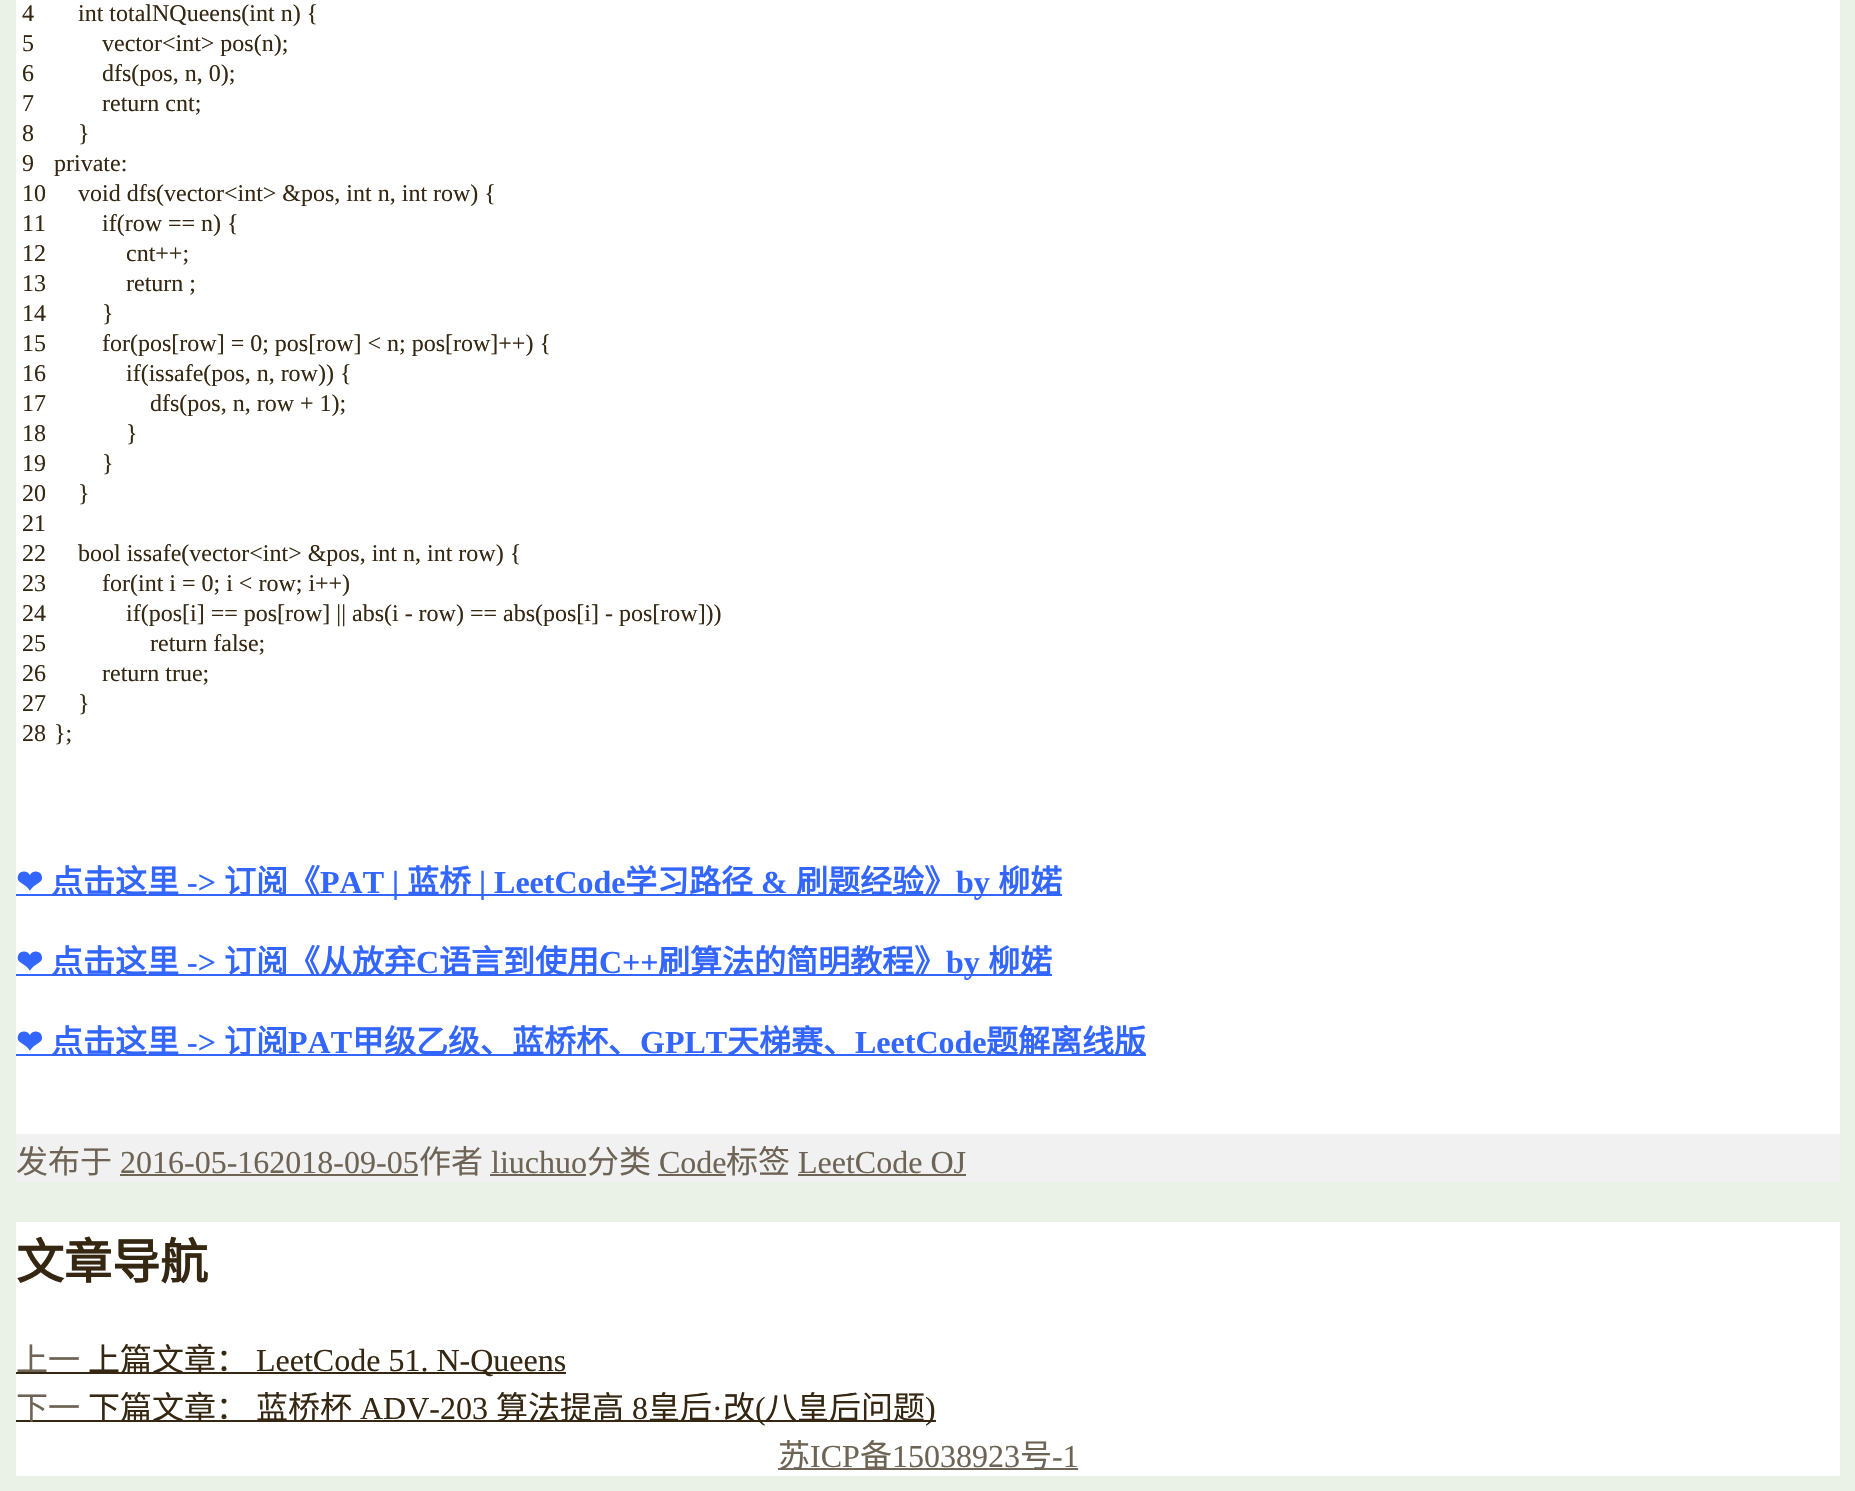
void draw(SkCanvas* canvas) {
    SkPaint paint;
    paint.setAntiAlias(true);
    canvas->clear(0xFFEAF2E8);
    paint.setColor(0xFFFFFFFF);
    canvas->drawRect(SkRect::MakeXYWH(16, 0, 1824, 1134), paint);
    SkFont font1(fontMgr->matchFamilyStyle("Liberation Serif", SkFontStyle::Normal()), 24);
    font1.setSubpixel(true);
    paint.setColor(0xFF352712);
    canvas->drawString("4", 22, 21, font1, paint);
    canvas->drawString("5", 22, 51, font1, paint);
    canvas->drawString("6", 22, 81, font1, paint);
    canvas->drawString("7", 22, 111, font1, paint);
    canvas->drawString("8", 22, 141, font1, paint);
    canvas->drawString("9", 22, 171, font1, paint);
    canvas->drawString("10", 22, 201, font1, paint);
    canvas->drawString("11", 22, 231, font1, paint);
    canvas->drawString("12", 22, 261, font1, paint);
    canvas->drawString("13", 22, 291, font1, paint);
    canvas->drawString("14", 22, 321, font1, paint);
    canvas->drawString("15", 22, 351, font1, paint);
    canvas->drawString("16", 22, 381, font1, paint);
    canvas->drawString("17", 22, 411, font1, paint);
    canvas->drawString("18", 22, 441, font1, paint);
    canvas->drawString("19", 22, 471, font1, paint);
    canvas->drawString("20", 22, 501, font1, paint);
    canvas->drawString("21", 22, 531, font1, paint);
    canvas->drawString("22", 22, 561, font1, paint);
    canvas->drawString("23", 22, 591, font1, paint);
    canvas->drawString("24", 22, 621, font1, paint);
    canvas->drawString("25", 22, 651, font1, paint);
    canvas->drawString("26", 22, 681, font1, paint);
    canvas->drawString("27", 22, 711, font1, paint);
    canvas->drawString("28", 22, 741, font1, paint);
    canvas->drawString("int totalNQueens(int n) {", 78, 21, font1, paint);
    canvas->drawString("vector<int> pos(n);", 102, 51, font1, paint);
    canvas->drawString("dfs(pos, n, 0);", 102, 81, font1, paint);
    canvas->drawString("return cnt;", 102, 111, font1, paint);
    canvas->drawString("}", 78, 141, font1, paint);
    canvas->drawString("private:", 54, 171, font1, paint);
    canvas->drawString("void dfs(vector<int> &pos, int n, int row) {", 78, 201, font1, paint);
    canvas->drawString("if(row == n) {", 102, 231, font1, paint);
    canvas->drawString("cnt++;", 126, 261, font1, paint);
    canvas->drawString("return ;", 126, 291, font1, paint);
    canvas->drawString("}", 102, 321, font1, paint);
    canvas->drawString("for(pos[row] = 0; pos[row] < n; pos[row]++) {", 102, 351, font1, paint);
    canvas->drawString("if(issafe(pos, n, row)) {", 126, 381, font1, paint);
    canvas->drawString("dfs(pos, n, row + 1);", 150, 411, font1, paint);
    canvas->drawString("}", 126, 441, font1, paint);
    canvas->drawString("}", 102, 471, font1, paint);
    canvas->drawString("}", 78, 501, font1, paint);
    canvas->drawString("bool issafe(vector<int> &pos, int n, int row) {", 78, 561, font1, paint);
    canvas->drawString("for(int i = 0; i < row; i++)", 102, 591, font1, paint);
    canvas->drawString("if(pos[i] == pos[row] || abs(i - row) == abs(pos[i] - pos[row]))", 126, 621, font1, paint);
    canvas->drawString("return false;", 150, 651, font1, paint);
    canvas->drawString("return true;", 102, 681, font1, paint);
    canvas->drawString("}", 78, 711, font1, paint);
    canvas->drawString("};", 54, 741, font1, paint);
    SkFont font2(fontMgr->matchFamilyStyle("DejaVu Sans", SkFontStyle::Bold()), 32);
    font2.setSubpixel(true);
    paint.setColor(0xFF3366FF);
    canvas->drawString("❤", 16, 893, font2, paint);
    canvas->drawRect(SkRect::MakeXYWH(16, 894, 1046, 2), paint);
    SkFont font3(fontMgr->matchFamilyStyle("Noto Sans CJK SC", SkFontStyle::Bold()), 32);
    font3.setSubpixel(true);
    canvas->drawString("点击这里", 51, 893, font3, paint);
    SkFont font4(fontMgr->matchFamilyStyle("Liberation Serif", SkFontStyle::Bold()), 32);
    font4.setSubpixel(true);
    canvas->drawString("->", 187, 893, font4, paint);
    canvas->drawString("订阅《", 224, 893, font3, paint);
    canvas->drawString("PAT |", 320, 893, font4, paint);
    canvas->drawString("蓝桥", 407, 893, font3, paint);
    canvas->drawString("| LeetCode", 479, 893, font4, paint);
    canvas->drawString("学习路径", 625, 893, font3, paint);
    canvas->drawString("&", 761, 893, font4, paint);
    canvas->drawString("刷题经验》", 796, 893, font3, paint);
    canvas->drawString("by", 956, 893, font4, paint);
    canvas->drawString("柳婼", 998, 893, font3, paint);
    canvas->drawString("❤", 16, 973, font2, paint);
    canvas->drawRect(SkRect::MakeXYWH(16, 974, 1036, 2), paint);
    canvas->drawString("点击这里", 51, 973, font3, paint);
    canvas->drawString("->", 187, 973, font4, paint);
    canvas->drawString("订阅《从放弃", 224, 973, font3, paint);
    canvas->drawString("C", 416, 973, font4, paint);
    canvas->drawString("语言到使用", 439, 973, font3, paint);
    canvas->drawString("C++", 599, 973, font4, paint);
    canvas->drawString("刷算法的简明教程》", 658, 973, font3, paint);
    canvas->drawString("by", 946, 973, font4, paint);
    canvas->drawString("柳婼", 988, 973, font3, paint);
    canvas->drawString("❤", 16, 1053, font2, paint);
    canvas->drawRect(SkRect::MakeXYWH(16, 1054, 1130, 2), paint);
    canvas->drawString("点击这里", 51, 1053, font3, paint);
    canvas->drawString("->", 187, 1053, font4, paint);
    canvas->drawString("订阅", 224, 1053, font3, paint);
    canvas->drawString("PAT", 288, 1053, font4, paint);
    canvas->drawString("甲级乙级、蓝桥杯、", 352, 1053, font3, paint);
    canvas->drawString("GPLT", 640, 1053, font4, paint);
    canvas->drawString("天梯赛、", 727, 1053, font3, paint);
    canvas->drawString("LeetCode", 855, 1053, font4, paint);
    canvas->drawString("题解离线版", 986, 1053, font3, paint);
    paint.setColor(0xFFF1F1F1);
    canvas->drawRect(SkRect::MakeXYWH(16, 1134, 1824, 48), paint);
    SkFont font5(fontMgr->matchFamilyStyle("Noto Sans CJK SC", SkFontStyle::Normal()), 32);
    font5.setSubpixel(true);
    paint.setColor(0xFF6D6455);
    canvas->drawString("发布于", 16, 1173, font5, paint);
    SkFont font6(fontMgr->matchFamilyStyle("Liberation Serif", SkFontStyle::Normal()), 32);
    font6.setSubpixel(true);
    canvas->drawString("2016-05-162018-09-05", 120, 1173, font6, paint);
    canvas->drawRect(SkRect::MakeXYWH(120, 1174, 298, 2), paint);
    canvas->drawString("作者", 419, 1173, font5, paint);
    canvas->drawString("liuchuo", 491, 1173, font6, paint);
    canvas->drawRect(SkRect::MakeXYWH(490, 1174, 96, 2), paint);
    canvas->drawString("分类", 587, 1173, font5, paint);
    canvas->drawString("Code", 659, 1173, font6, paint);
    canvas->drawRect(SkRect::MakeXYWH(658, 1174, 68, 2), paint);
    canvas->drawString("标签", 726, 1173, font5, paint);
    canvas->drawString("LeetCode OJ", 798, 1173, font6, paint);
    canvas->drawRect(SkRect::MakeXYWH(798, 1174, 168, 2), paint);
    paint.setColor(0xFFFFFFFF);
    canvas->drawRect(SkRect::MakeXYWH(16, 1222, 1824, 254), paint);
    SkFont font7(fontMgr->matchFamilyStyle("Noto Sans CJK SC", SkFontStyle::Bold()), 48);
    font7.setSubpixel(true);
    paint.setColor(0xFF352712);
    canvas->drawString("文章导航", 16, 1279, font7, paint);
    canvas->drawRect(SkRect::MakeXYWH(16, 1372, 550, 2), paint);
    paint.setColor(0xFF6D6455);
    canvas->drawString("上一", 16, 1371, font5, paint);
    paint.setColor(0xFF352712);
    canvas->drawString("上篇文章：", 88, 1371, font5, paint);
    canvas->drawString("LeetCode 51. N-Queens", 256, 1371, font6, paint);
    canvas->drawRect(SkRect::MakeXYWH(16, 1420, 920, 2), paint);
    paint.setColor(0xFF6D6455);
    canvas->drawString("下一", 16, 1419, font5, paint);
    paint.setColor(0xFF352712);
    canvas->drawString("下篇文章：", 88, 1419, font5, paint);
    canvas->drawString("蓝桥杯", 256, 1419, font5, paint);
    canvas->drawString("ADV-203", 360, 1419, font6, paint);
    canvas->drawString("算法提高", 496, 1419, font5, paint);
    canvas->drawString("8", 632, 1419, font6, paint);
    canvas->drawString("皇后", 648, 1419, font5, paint);
    canvas->drawString("·", 712, 1419, font6, paint);
    canvas->drawString("改", 723, 1419, font5, paint);
    canvas->drawString("(", 755, 1419, font6, paint);
    canvas->drawString("八皇后问题", 765, 1419, font5, paint);
    canvas->drawString(")", 925, 1419, font6, paint);
    paint.setColor(0xFF726859);
    canvas->drawRect(SkRect::MakeXYWH(778, 1468, 300, 2), paint);
    paint.setColor(0xFF6D6455);
    canvas->drawString("苏", 778, 1467, font5, paint);
    canvas->drawString("ICP", 810, 1467, font6, paint);
    canvas->drawString("备", 860, 1467, font5, paint);
    canvas->drawString("15038923", 892, 1467, font6, paint);
    canvas->drawString("号", 1020, 1467, font5, paint);
    canvas->drawString("-1", 1052, 1467, font6, paint);
}
